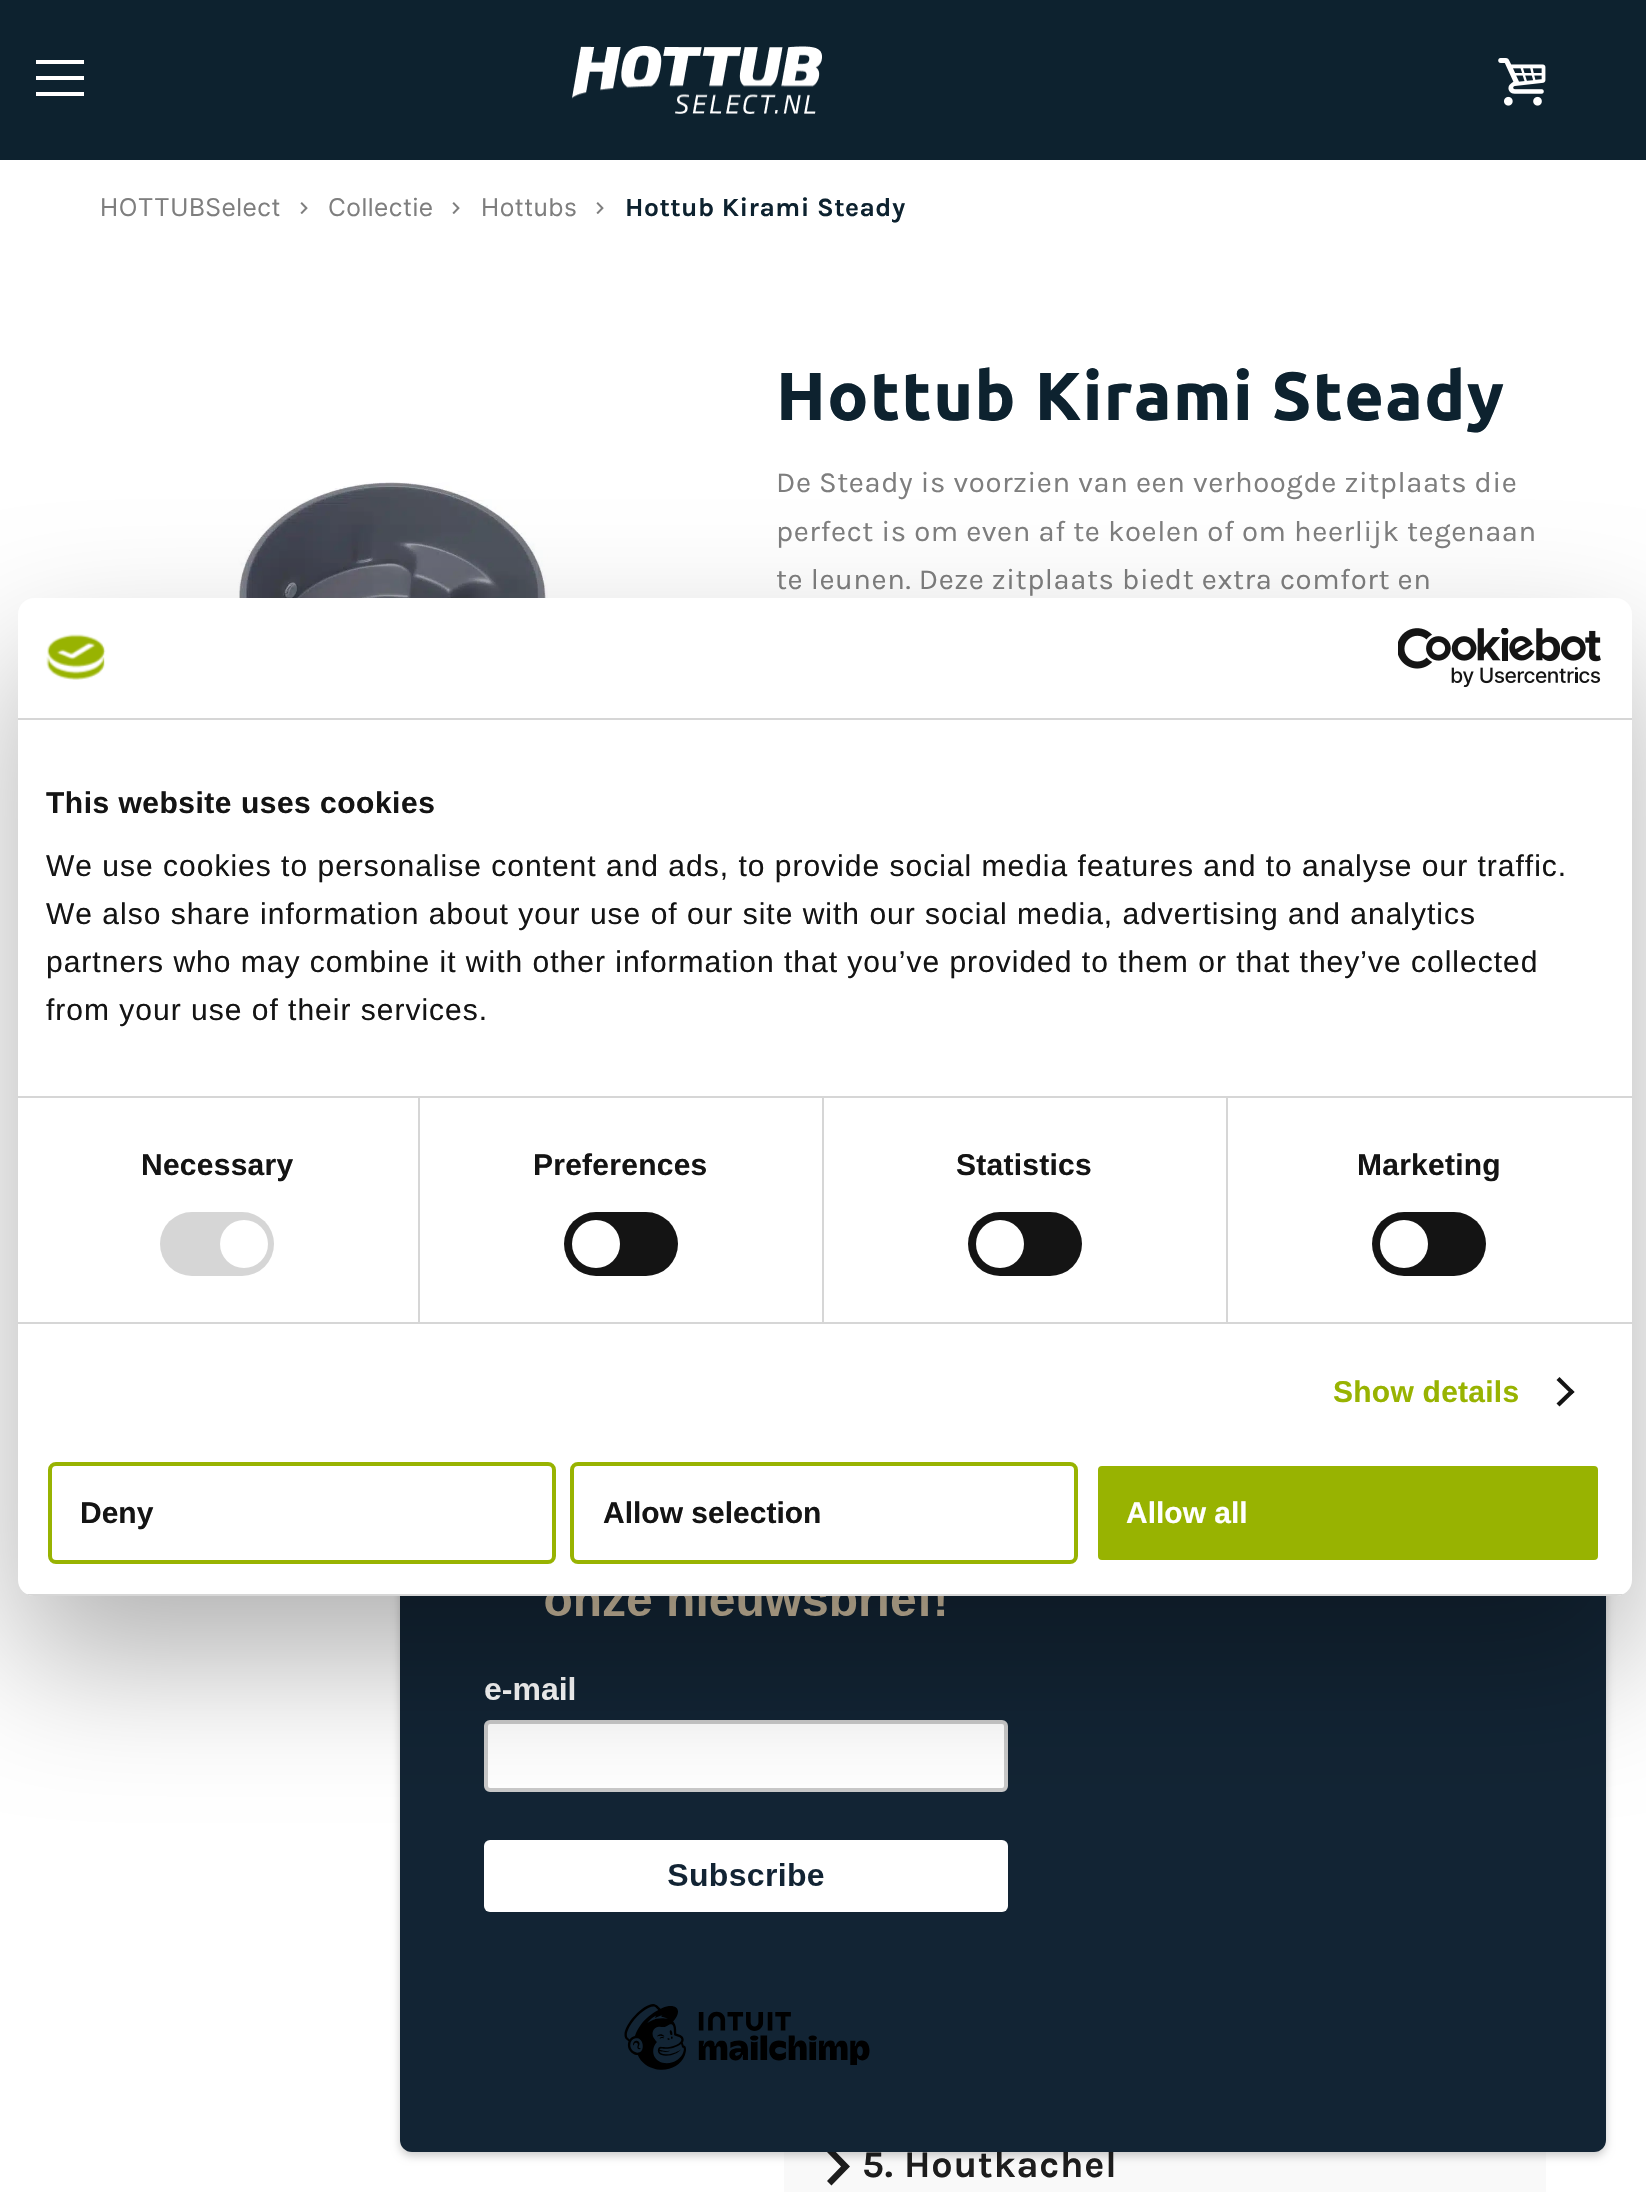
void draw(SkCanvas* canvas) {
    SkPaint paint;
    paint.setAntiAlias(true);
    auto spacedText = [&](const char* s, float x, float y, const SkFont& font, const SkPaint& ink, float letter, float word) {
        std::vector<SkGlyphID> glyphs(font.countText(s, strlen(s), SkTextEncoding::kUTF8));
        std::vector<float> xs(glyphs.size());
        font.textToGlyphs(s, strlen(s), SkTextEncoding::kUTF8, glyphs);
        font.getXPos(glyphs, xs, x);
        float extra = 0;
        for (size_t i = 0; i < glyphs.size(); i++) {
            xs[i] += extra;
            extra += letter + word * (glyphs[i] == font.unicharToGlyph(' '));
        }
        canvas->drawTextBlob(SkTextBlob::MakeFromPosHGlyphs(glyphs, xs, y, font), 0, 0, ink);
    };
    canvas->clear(0xFFFFFFFF);
    paint.setColor(0xFF0D222F);
    canvas->drawRect(SkRect::MakeXYWH(0, 0, 1646, 160), paint);
    paint.setColor(0xFFFFFFFF);
    canvas->drawRect(SkRect::MakeXYWH(36, 60, 48, 4), paint);
    canvas->drawRect(SkRect::MakeXYWH(36, 76, 48, 4), paint);
    canvas->drawRect(SkRect::MakeXYWH(36, 92, 48, 4), paint);
    canvas->drawImageRect(SkImages::DeferredFromEncodedData(SkData::MakeFromFileName("img1.png")), SkRect::MakeXYWH(572, 46, 250, 68), SkSamplingOptions());
    canvas->drawImageRect(SkImages::DeferredFromEncodedData(SkData::MakeFromFileName("img2.png")), SkRect::MakeXYWH(1498, 58, 48, 48), SkSamplingOptions());
    SkFont font1(fontMgr->matchFamilyStyle("Inter", SkFontStyle::Normal()), 24.5f);
    font1.setSubpixel(true);
    paint.setColor(0xFF7E7E7E);
    spacedText("HOTTUBSelect", 100, 216, font1, paint, 0.5f, 0);
    canvas->drawImageRect(SkImages::DeferredFromEncodedData(SkData::MakeFromFileName("img3.png")), SkRect::MakeXYWH(300, 202, 8, 12), SkSamplingOptions());
    spacedText("Collectie", 328, 216, font1, paint, 0.5f, 0);
    canvas->drawImageRect(SkImages::DeferredFromEncodedData(SkData::MakeFromFileName("img3.png")), SkRect::MakeXYWH(452, 202, 8, 12), SkSamplingOptions());
    spacedText("Hottubs", 481, 216, font1, paint, 0.5f, 0);
    canvas->drawImageRect(SkImages::DeferredFromEncodedData(SkData::MakeFromFileName("img3.png")), SkRect::MakeXYWH(596, 202, 8, 12), SkSamplingOptions());
    SkFont font2(fontMgr->matchFamilyStyle("Karla", SkFontStyle::Bold()), 26.25f);
    font2.setSubpixel(true);
    paint.setColor(0xFF0D222F);
    spacedText("Hottub Kirami Steady", 625, 216, font2, paint, 0.5f, 0);
    canvas->drawImageRect(SkImages::DeferredFromEncodedData(SkData::MakeFromFileName("img4.png")), SkRect::MakeXYWH(238, 482, 310, 116), SkSamplingOptions());
    SkFont font3(fontMgr->matchFamilyStyle("Ubuntu", SkFontStyle::Bold()), 68);
    font3.setSubpixel(true);
    spacedText("Hottub Kirami Steady", 776, 420, font3, paint, 1.4f, 0);
    SkFont font4(fontMgr->matchFamilyStyle("Karla", SkFontStyle::Normal()), 29.25f);
    font4.setSubpixel(true);
    paint.setColor(0xFF7E7E7E);
    spacedText("De Steady is voorzien van een verhoogde zitplaats die", 776, 492, font4, paint, 0.58f, 0);
    spacedText("perfect is om even af te koelen of om heerlijk tegenaan", 776, 541, font4, paint, 0.58f, 0);
    spacedText("te leunen. Deze zitplaats biedt extra comfort en", 776, 589, font4, paint, 0.58f, 0);
    paint.setColor(0xFFF9F9F9);
    canvas->drawRect(SkRect::MakeXYWH(784, 2152, 762, 40), paint);
    paint.setColor(0xFF1D1D1D);
    canvas->drawPath(SkPathBuilder().moveTo(827, 2181).lineTo(841, 2166.5f).lineTo(827, 2152).lineTo(831.5f, 2147.5f).lineTo(850, 2166.5f).lineTo(831.5f, 2185.5f).close().detach(), paint);
    SkFont font5(fontMgr->matchFamilyStyle("Karla", SkFontStyle::Bold()), 37.75f);
    font5.setSubpixel(true);
    spacedText("5. Houtkachel", 862, 2177, font5, paint, 0.75f, 0);
    paint.setColor(0x33000000);
    paint.setMaskFilter(SkMaskFilter::MakeBlur(kNormal_SkBlurStyle, 4));
    canvas->drawRoundRect(SkRect::MakeXYWH(400, 1398, 1206, 758), 12, 12, paint);
    paint.setMaskFilter(nullptr);
    canvas->drawImageRect(SkImages::DeferredFromEncodedData(SkData::MakeFromFileName("img7.png")), SkRect::MakeXYWH(400, 1596, 1206, 556), SkSamplingOptions());
    paint.setColor(0x4D000000);
    paint.setMaskFilter(SkMaskFilter::MakeBlur(kNormal_SkBlurStyle, 68));
    canvas->drawRoundRect(SkRect::MakeXYWH(18, 662, 1614, 998), 16, 16, paint);
    paint.setMaskFilter(nullptr);
    paint.setColor(0xFFFFFFFF);
    canvas->drawRoundRect(SkRect::MakeXYWH(18, 598, 1614, 998), 16, 16, paint);
    paint.setColor(0xFFD6D6D6);
    canvas->drawRect(SkRect::MakeXYWH(18, 718, 1614, 2), paint);
    canvas->drawImageRect(SkImages::DeferredFromEncodedData(SkData::MakeFromFileName("img5.png")), SkRect::MakeXYWH(46, 634, 60, 46), SkSamplingOptions());
    canvas->drawImageRect(SkImages::DeferredFromEncodedData(SkData::MakeFromFileName("img6.png")), SkRect::MakeXYWH(1398, 628, 203, 60), SkSamplingOptions());
    canvas->drawRect(SkRect::MakeXYWH(18, 1096, 1614, 2), paint);
    SkFont font6(fontMgr->matchFamilyStyle("Liberation Sans", SkFontStyle::Bold()), 30);
    font6.setSubpixel(true);
    paint.setColor(0xFF141414);
    spacedText("This website uses cookies", 46, 813, font6, paint, 0.5f, 0);
    SkFont font7(fontMgr->matchFamilyStyle("Liberation Sans", SkFontStyle::Normal()), 30);
    font7.setSubpixel(true);
    spacedText("We use cookies to personalise content and ads, to provide social media features and to analyse our traffic.", 46, 876, font7, paint, 1, 0);
    spacedText("We also share information about your use of our site with our social media, advertising and analytics", 46, 924, font7, paint, 1, 0);
    spacedText("partners who may combine it with other information that you’ve provided to them or that they’ve collected", 46, 972, font7, paint, 1, 0);
    spacedText("from your use of their services.", 46, 1020, font7, paint, 1, 0);
    paint.setColor(0xFFD6D6D6);
    canvas->drawRect(SkRect::MakeXYWH(18, 1322, 1614, 2), paint);
    canvas->drawRect(SkRect::MakeXYWH(418, 1098, 2, 224), paint);
    paint.setColor(0xFF141414);
    spacedText("Necessary", 141, 1175, font6, paint, 0.25f, 0);
    paint.setColor(0xFFD6D6D6);
    canvas->drawRoundRect(SkRect::MakeXYWH(160, 1212, 114, 64), 32, 32, paint);
    paint.setColor(0xFFFFFFFF);
    canvas->drawCircle(244, 1244, 24, paint);
    paint.setColor(0xFFD6D6D6);
    canvas->drawRect(SkRect::MakeXYWH(822, 1098, 2, 224), paint);
    paint.setColor(0xFF141414);
    spacedText("Preferences", 533, 1175, font6, paint, 0.25f, 0);
    canvas->drawRoundRect(SkRect::MakeXYWH(564, 1212, 114, 64), 32, 32, paint);
    paint.setColor(0xFFFFFFFF);
    canvas->drawCircle(596, 1244, 24, paint);
    paint.setColor(0xFFD6D6D6);
    canvas->drawRect(SkRect::MakeXYWH(1226, 1098, 2, 224), paint);
    paint.setColor(0xFF141414);
    spacedText("Statistics", 956, 1175, font6, paint, 0.25f, 0);
    canvas->drawRoundRect(SkRect::MakeXYWH(968, 1212, 114, 64), 32, 32, paint);
    paint.setColor(0xFFFFFFFF);
    canvas->drawCircle(1000, 1244, 24, paint);
    paint.setColor(0xFF141414);
    spacedText("Marketing", 1357, 1175, font6, paint, 0.25f, 0);
    canvas->drawRoundRect(SkRect::MakeXYWH(1372, 1212, 114, 64), 32, 32, paint);
    paint.setColor(0xFFFFFFFF);
    canvas->drawCircle(1404, 1244, 24, paint);
    paint.setColor(0xFF98B301);
    spacedText("Show details", 1333, 1402, font6, paint, 0.25f, 0);
    paint.setColor(0xFF141414);
    canvas->drawPath(SkPathBuilder().moveTo(1559.5f, 1377).lineTo(1574.5f, 1392).lineTo(1571.5f, 1394.5f).lineTo(1556.5f, 1380).close().detach(), paint);
    canvas->drawPath(SkPathBuilder().moveTo(1571.5f, 1389).lineTo(1574.5f, 1392).lineTo(1559.5f, 1406.5f).lineTo(1556.5f, 1403.5f).close().detach(), paint);
    canvas->save();
    canvas->clipPath(SkPathBuilder().moveTo(34, 598).lineTo(1616, 598).cubicTo(1625, 598, 1632, 605, 1632, 614).lineTo(1632, 1580).cubicTo(1632, 1589, 1625, 1596, 1616, 1596).lineTo(34, 1596).cubicTo(25, 1596, 18, 1589, 18, 1580).lineTo(18, 614).cubicTo(18, 605, 25, 598, 34, 598).close().detach(), true);
    paint.setColor(0xFFD6D6D6);
    canvas->drawRect(SkRect::MakeXYWH(18, 1594, 1614, 2), paint);
    canvas->restore();
    paint.setStyle(SkPaint::kStroke_Style);
    paint.setStrokeWidth(4);
    paint.setColor(0xFF98B301);
    canvas->drawRoundRect(SkRect::MakeXYWH(50, 1464, 504, 98), 6, 6, paint);
    paint.setStyle(SkPaint::kFill_Style);
    paint.setColor(0xFF141414);
    canvas->drawString("Deny", 80, 1523, font6, paint);
    paint.setStyle(SkPaint::kStroke_Style);
    paint.setColor(0xFF98B301);
    canvas->drawRoundRect(SkRect::MakeXYWH(572, 1464, 504, 98), 6, 6, paint);
    paint.setStyle(SkPaint::kFill_Style);
    paint.setColor(0xFF141414);
    canvas->drawString("Allow selection", 603, 1523, font6, paint);
    paint.setColor(0xFF98B301);
    canvas->drawRoundRect(SkRect::MakeXYWH(1096, 1464, 504, 98), 6, 6, paint);
    paint.setStyle(SkPaint::kStroke_Style);
    paint.setColor(0xFFFFFFFF);
    canvas->drawRoundRect(SkRect::MakeXYWH(1096, 1464, 504, 98), 6, 6, paint);
    paint.setStyle(SkPaint::kFill_Style);
    canvas->drawString("Allow all", 1126, 1523, font6, paint);
}
